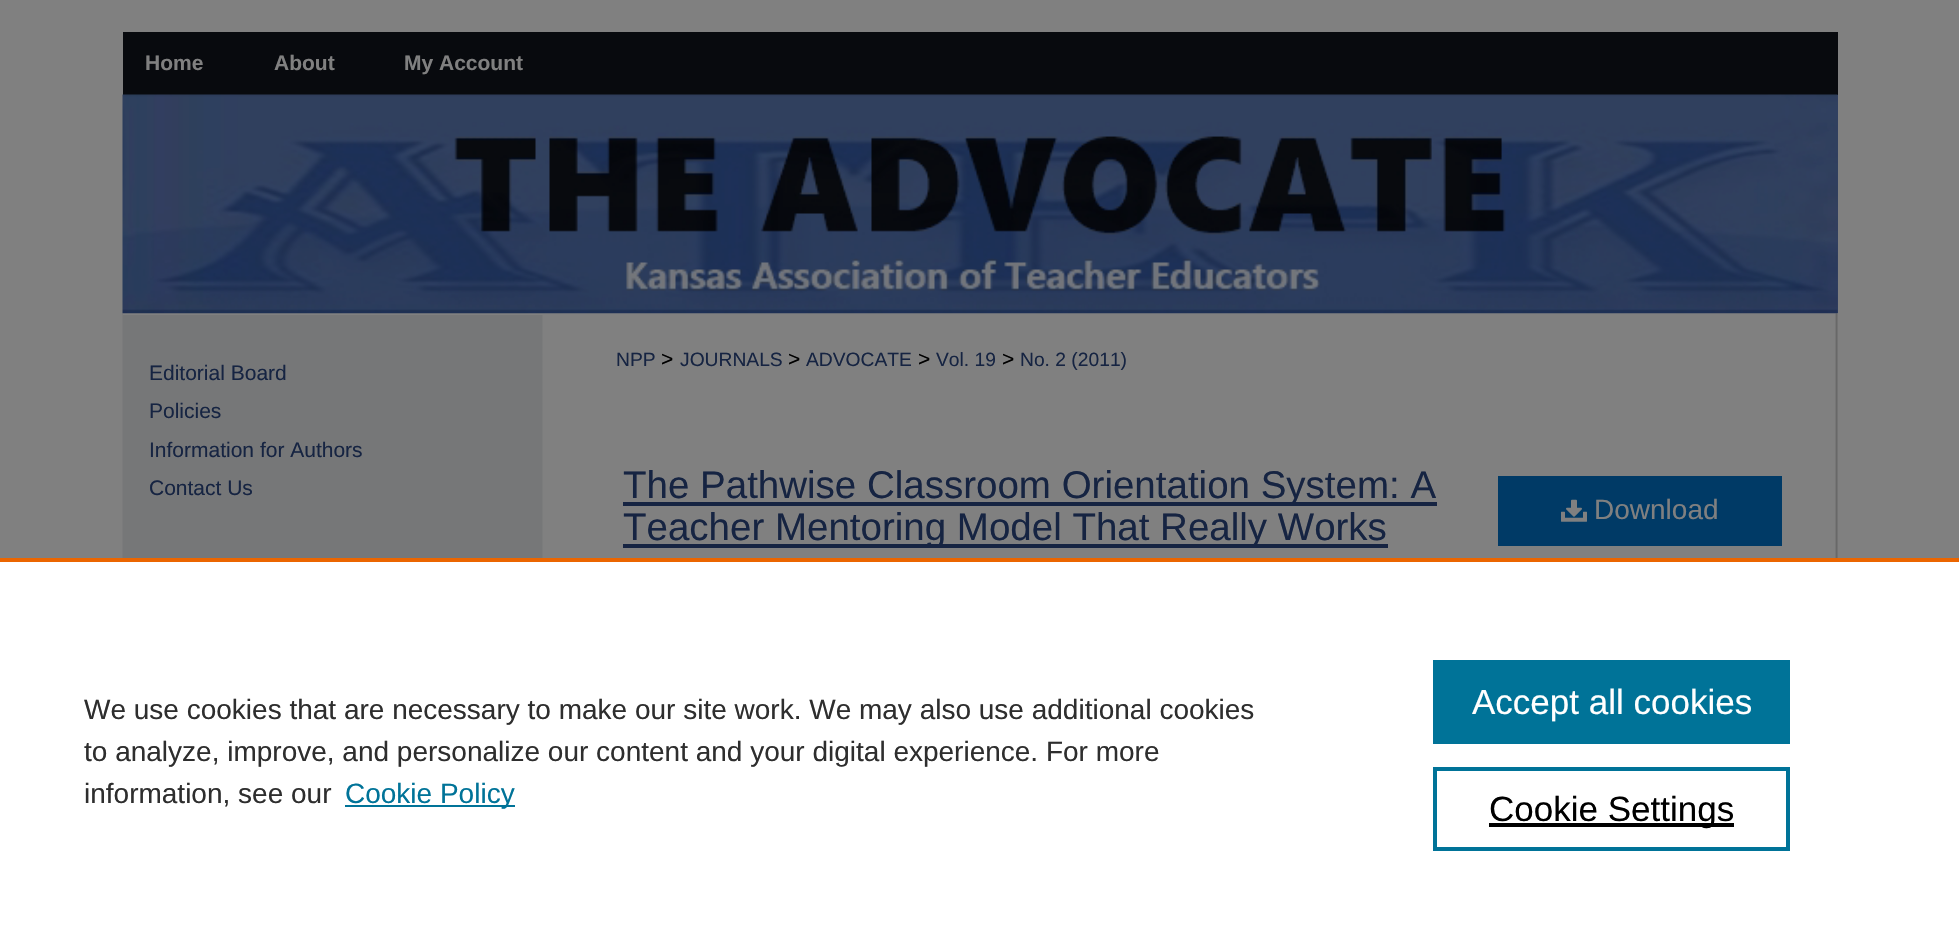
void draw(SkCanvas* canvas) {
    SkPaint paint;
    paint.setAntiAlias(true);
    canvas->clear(0xFF808080);
    paint.setColor(0xFF080A0E);
    canvas->drawRect(SkRect::MakeXYWH(123, 32, 1715, 63), paint);
    SkFont font1(fontMgr->matchFamilyStyle("Liberation Sans", SkFontStyle::Bold()), 21);
    font1.setSubpixel(true);
    paint.setColor(0xFF808080);
    canvas->drawString("Home", 145, 70, font1, paint);
    canvas->drawString("About", 274, 70, font1, paint);
    canvas->drawString("My Account", 404, 70, font1, paint);
    paint.setColor(0xFF31405F);
    canvas->drawRect(SkRect::MakeXYWH(1837, 95, 1, 218), paint);
    canvas->drawImageRect(SkImages::DeferredFromEncodedData(SkData::MakeFromFileName("img2.png")), SkRect::MakeXYWH(122, 313, 1716, 245), SkSamplingOptions());
    paint.setColor(0xFF808080);
    canvas->drawRect(SkRect::MakeXYWH(123, 313, 420, 2), paint);
    canvas->drawImageRect(SkImages::DeferredFromEncodedData(SkData::MakeFromFileName("img1.png")), SkRect::MakeXYWH(122, 94, 1716, 220), SkSamplingOptions());
    SkFont font2(fontMgr->matchFamilyStyle("Liberation Sans", SkFontStyle::Normal()), 21);
    font2.setSubpixel(true);
    paint.setColor(0xFF162442);
    canvas->drawString("Editorial Board", 149, 380, font2, paint);
    canvas->drawString("Policies", 149, 418, font2, paint);
    canvas->drawString("Information for Authors", 149, 457, font2, paint);
    canvas->drawString("Contact Us", 149, 495, font2, paint);
    SkFont font3(fontMgr->matchFamilyStyle("Liberation Sans", SkFontStyle::Normal()), 19.25f);
    font3.setSubpixel(true);
    canvas->drawString("NPP", 616, 366, font3, paint);
    paint.setColor(0xFF000000);
    canvas->drawString(">", 661, 366, font2, paint);
    paint.setColor(0xFF162442);
    canvas->drawString("JOURNALS", 680, 366, font3, paint);
    paint.setColor(0xFF000000);
    canvas->drawString(">", 788, 366, font2, paint);
    paint.setColor(0xFF162442);
    canvas->drawString("ADVOCATE", 806, 366, font3, paint);
    paint.setColor(0xFF000000);
    canvas->drawString(">", 918, 366, font2, paint);
    paint.setColor(0xFF162442);
    canvas->drawString("Vol. 19", 936, 366, font3, paint);
    paint.setColor(0xFF000000);
    canvas->drawString(">", 1002, 366, font2, paint);
    paint.setColor(0xFF162442);
    canvas->drawString("No. 2 (2011)", 1020, 366, font3, paint);
    canvas->drawRect(SkRect::MakeXYWH(623, 502, 814, 4), paint);
    SkFont font4(fontMgr->matchFamilyStyle("Liberation Sans", SkFontStyle::Normal()), 38.5f);
    font4.setSubpixel(true);
    canvas->drawString("The Pathwise Classroom Orientation System: A", 623, 498, font4, paint);
    canvas->drawRect(SkRect::MakeXYWH(623, 544, 765, 4), paint);
    canvas->drawString("Teacher Mentoring Model That Really Works", 623, 540, font4, paint);
    paint.setColor(0xFF003A66);
    canvas->drawRect(SkRect::MakeXYWH(1498, 476, 284, 70), paint);
    canvas->drawImageRect(SkImages::DeferredFromEncodedData(SkData::MakeFromFileName("img3.png")), SkRect::MakeXYWH(1561, 499, 26, 23), SkSamplingOptions());
    SkFont font5(fontMgr->matchFamilyStyle("Liberation Sans", SkFontStyle::Normal()), 28);
    font5.setSubpixel(true);
    paint.setColor(0xFF808080);
    canvas->drawString("Download", 1594, 519, font5, paint);
    paint.setColor(0xFFFFFFFF);
    canvas->drawRect(SkRect::MakeXYWH(0, 562, 1959, 380), paint);
    paint.setColor(0xFFEB6500);
    canvas->drawRect(SkRect::MakeXYWH(0, 558, 1959, 4), paint);
    paint.setColor(0xFF2E2E2E);
    canvas->drawString("We use cookies that are necessary to make our site work. We may also use additional cookies", 84, 719, font5, paint);
    canvas->drawString("to analyze, improve, and personalize our content and your digital experience. For more", 84, 761, font5, paint);
    canvas->drawString("information, see our", 84, 803, font5, paint);
    paint.setColor(0xFF007398);
    canvas->drawRect(SkRect::MakeXYWH(345, 805, 170, 2), paint);
    canvas->drawString("Cookie Policy", 345, 803, font5, paint);
    canvas->drawRect(SkRect::MakeXYWH(1433, 660, 357, 84), paint);
    SkFont font6(fontMgr->matchFamilyStyle("Liberation Sans", SkFontStyle::Normal()), 35);
    font6.setSubpixel(true);
    paint.setColor(0xFFFFFFFF);
    canvas->drawString("Accept all cookies", 1472, 714, font6, paint);
    paint.setStyle(SkPaint::kStroke_Style);
    paint.setStrokeWidth(4);
    paint.setColor(0xFF007398);
    canvas->drawRect(SkRect::MakeXYWH(1435, 769, 353, 80), paint);
    paint.setStyle(SkPaint::kFill_Style);
    paint.setColor(0xFF000000);
    canvas->drawRect(SkRect::MakeXYWH(1489, 823, 245, 4), paint);
    canvas->drawString("Cookie Settings", 1489, 821, font6, paint);
}
